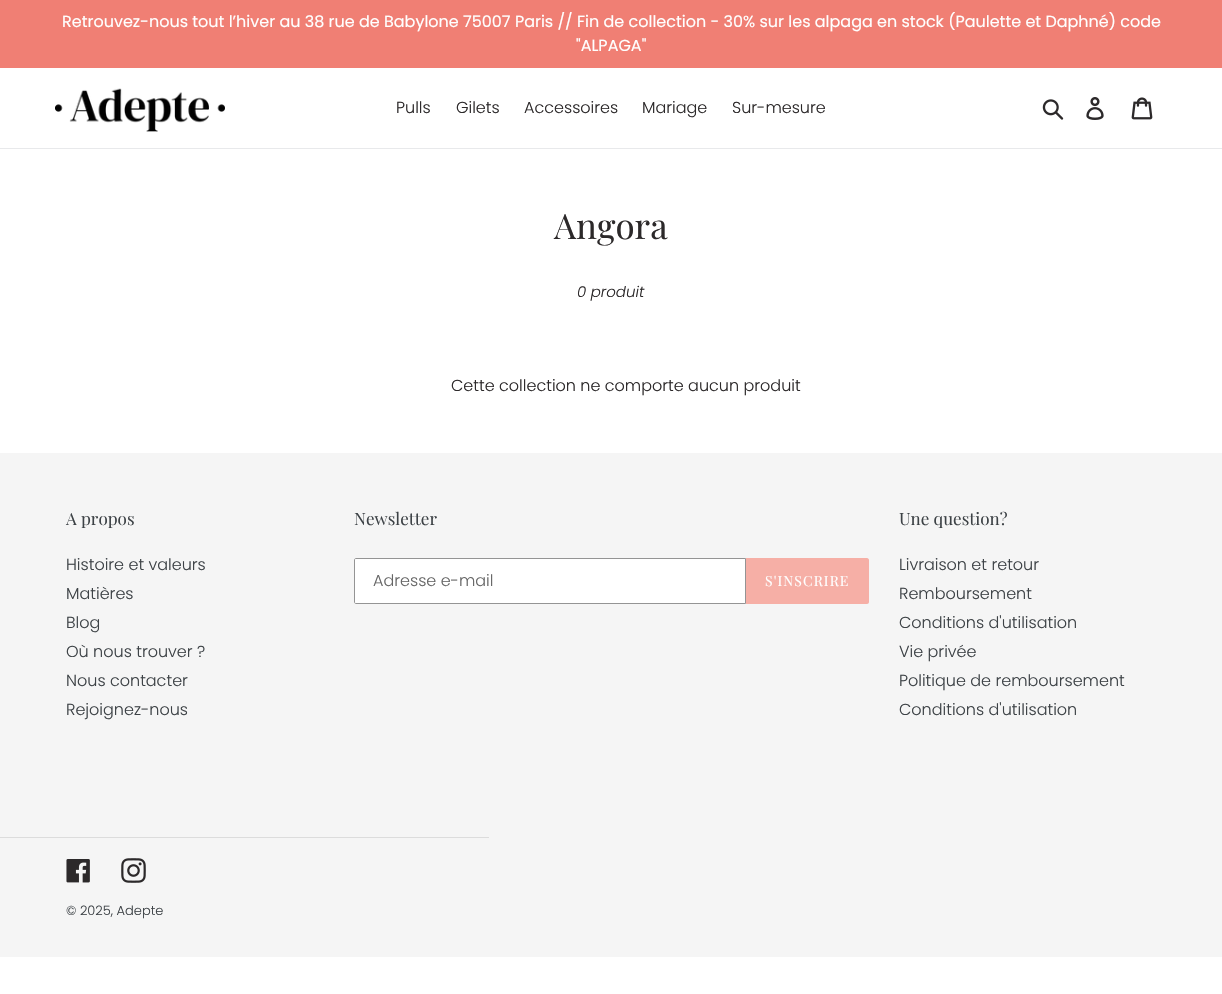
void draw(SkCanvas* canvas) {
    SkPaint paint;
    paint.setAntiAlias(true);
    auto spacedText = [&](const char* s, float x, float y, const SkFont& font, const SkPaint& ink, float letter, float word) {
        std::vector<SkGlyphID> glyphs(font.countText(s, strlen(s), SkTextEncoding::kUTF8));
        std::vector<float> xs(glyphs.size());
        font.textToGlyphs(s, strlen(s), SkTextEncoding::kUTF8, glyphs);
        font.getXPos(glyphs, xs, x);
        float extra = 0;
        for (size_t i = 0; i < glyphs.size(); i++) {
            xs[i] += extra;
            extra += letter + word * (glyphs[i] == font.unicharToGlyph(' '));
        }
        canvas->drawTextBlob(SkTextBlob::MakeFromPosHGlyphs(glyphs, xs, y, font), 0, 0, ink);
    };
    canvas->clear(0xFFFFFFFF);
    paint.setColor(0xFFF07F74);
    canvas->drawRect(SkRect::MakeXYWH(0, 0, 1222, 68), paint);
    SkFont font1(fontMgr->matchFamilyStyle("Poppins", SkFontStyle::Normal()), 16);
    font1.setSubpixel(true);
    paint.setColor(0xFFFFFFFF);
    canvas->drawString("Retrouvez-nous tout l’hiver au 38 rue de Babylone 75007 Paris // Fin de collection - 30% sur les alpaga en stock (Paulette et Daphné) code", 62, 27, font1, paint);
    canvas->drawString("\"ALPAGA\"", 576, 51, font1, paint);
    paint.setColor(0xFFE8E9EB);
    canvas->drawRect(SkRect::MakeXYWH(0, 148, 1222, 1), paint);
    canvas->drawImageRect(SkImages::DeferredFromEncodedData(SkData::MakeFromFileName("img1.png")), SkRect::MakeXYWH(55, 88, 170, 44), SkSamplingOptions());
    SkFont font2(fontMgr->matchFamilyStyle("Poppins", SkFontStyle(300, SkFontStyle::kNormal_Width, SkFontStyle::kUpright_Slant)), 16);
    font2.setSubpixel(true);
    paint.setColor(0xFF2C292A);
    canvas->drawString("Pulls", 396, 113, font2, paint);
    canvas->drawString("Gilets", 456, 113, font2, paint);
    canvas->drawString("Accessoires", 524, 113, font2, paint);
    canvas->drawString("Mariage", 642, 113, font2, paint);
    canvas->drawString("Sur-mesure", 732, 113, font2, paint);
    canvas->drawImageRect(SkImages::DeferredFromEncodedData(SkData::MakeFromFileName("img2.png")), SkRect::MakeXYWH(1042, 99, 22, 21), SkSamplingOptions());
    canvas->drawImageRect(SkImages::DeferredFromEncodedData(SkData::MakeFromFileName("img3.png")), SkRect::MakeXYWH(1086, 97, 18, 23), SkSamplingOptions());
    canvas->drawImageRect(SkImages::DeferredFromEncodedData(SkData::MakeFromFileName("img4.png")), SkRect::MakeXYWH(1131, 97, 22, 23), SkSamplingOptions());
    SkFont font3(fontMgr->matchFamilyStyle("Playfair Display", SkFontStyle::Normal()), 35);
    font3.setSubpixel(true);
    canvas->drawString("Angora", 554, 239, font3, paint);
    SkFont font4(fontMgr->matchFamilyStyle("Poppins", SkFontStyle(300, SkFontStyle::kNormal_Width, SkFontStyle::kItalic_Slant)), 15);
    font4.setSubpixel(true);
    canvas->drawString("0 produit", 577, 297, font4, paint);
    canvas->drawString("Cette collection ne comporte aucun produit", 451, 391, font2, paint);
    paint.setColor(0xFFF5F5F5);
    canvas->drawRect(SkRect::MakeXYWH(0, 453, 1222, 504), paint);
    SkFont font5(fontMgr->matchFamilyStyle("Playfair Display", SkFontStyle::Normal()), 17);
    font5.setSubpixel(true);
    paint.setColor(0xFF3D4246);
    canvas->drawString("A propos", 66, 525, font5, paint);
    canvas->drawString("Histoire et valeurs", 66, 570, font2, paint);
    canvas->drawString("Matières", 66, 599, font2, paint);
    canvas->drawString("Blog", 66, 628, font2, paint);
    canvas->drawString("Où nous trouver ?", 66, 657, font2, paint);
    canvas->drawString("Nous contacter", 66, 686, font2, paint);
    canvas->drawString("Rejoignez-nous", 66, 715, font2, paint);
    canvas->drawString("Newsletter", 354, 525, font5, paint);
    paint.setColor(0xFFFFFFFF);
    canvas->drawPath(SkPathBuilder().moveTo(356, 558.5f).lineTo(745.5f, 558.5f).lineTo(745.5f, 603.5f).lineTo(356, 603.5f).cubicTo(355, 603.5f, 354.5f, 603, 354.5f, 602).lineTo(354.5f, 560).cubicTo(354.5f, 559, 355, 558.5f, 356, 558.5f).close().detach(), paint);
    paint.setStyle(SkPaint::kStroke_Style);
    paint.setStrokeWidth(1);
    paint.setColor(0xFF949494);
    canvas->drawPath(SkPathBuilder().moveTo(356, 558.5f).lineTo(745.5f, 558.5f).lineTo(745.5f, 603.5f).lineTo(356, 603.5f).cubicTo(355, 603.5f, 354.5f, 603, 354.5f, 602).lineTo(354.5f, 560).cubicTo(354.5f, 559, 355, 558.5f, 356, 558.5f).close().detach(), paint);
    paint.setStyle(SkPaint::kFill_Style);
    paint.setColor(0xFF666666);
    canvas->drawString("Adresse e-mail", 373, 586, font2, paint);
    paint.setColor(0xFFF6AFA6);
    canvas->drawPath(SkPathBuilder().moveTo(746, 558).lineTo(867, 558).cubicTo(868, 558, 869, 559, 869, 560).lineTo(869, 602).cubicTo(869, 603, 868, 604, 867, 604).lineTo(746, 604).close().detach(), paint);
    SkFont font6(fontMgr->matchFamilyStyle("Playfair Display", SkFontStyle::Normal()), 14);
    font6.setSubpixel(true);
    paint.setColor(0xFFFFFFFF);
    spacedText("S'INSCRIRE", 765, 586, font6, paint, 1.1f, 0);
    paint.setColor(0xFF3D4246);
    canvas->drawString("Une question?", 899, 525, font5, paint);
    canvas->drawString("Livraison et retour", 899, 570, font2, paint);
    canvas->drawString("Remboursement", 899, 599, font2, paint);
    canvas->drawString("Conditions d'utilisation", 899, 628, font2, paint);
    canvas->drawString("Vie privée", 899, 657, font2, paint);
    canvas->drawString("Politique de remboursement", 899, 686, font2, paint);
    canvas->drawString("Conditions d'utilisation", 899, 715, font2, paint);
    paint.setColor(0xFFDCDCDC);
    canvas->drawRect(SkRect::MakeXYWH(0, 837, 489, 1), paint);
    canvas->drawImageRect(SkImages::DeferredFromEncodedData(SkData::MakeFromFileName("img5.png")), SkRect::MakeXYWH(66, 859, 24, 24), SkSamplingOptions());
    canvas->drawImageRect(SkImages::DeferredFromEncodedData(SkData::MakeFromFileName("img6.png")), SkRect::MakeXYWH(121, 858, 25, 25), SkSamplingOptions());
    SkFont font7(fontMgr->matchFamilyStyle("Poppins", SkFontStyle(300, SkFontStyle::kNormal_Width, SkFontStyle::kUpright_Slant)), 13);
    font7.setSubpixel(true);
    paint.setColor(0xFF3D4246);
    canvas->drawString("© 2025, Adepte", 66, 915, font7, paint);
}
